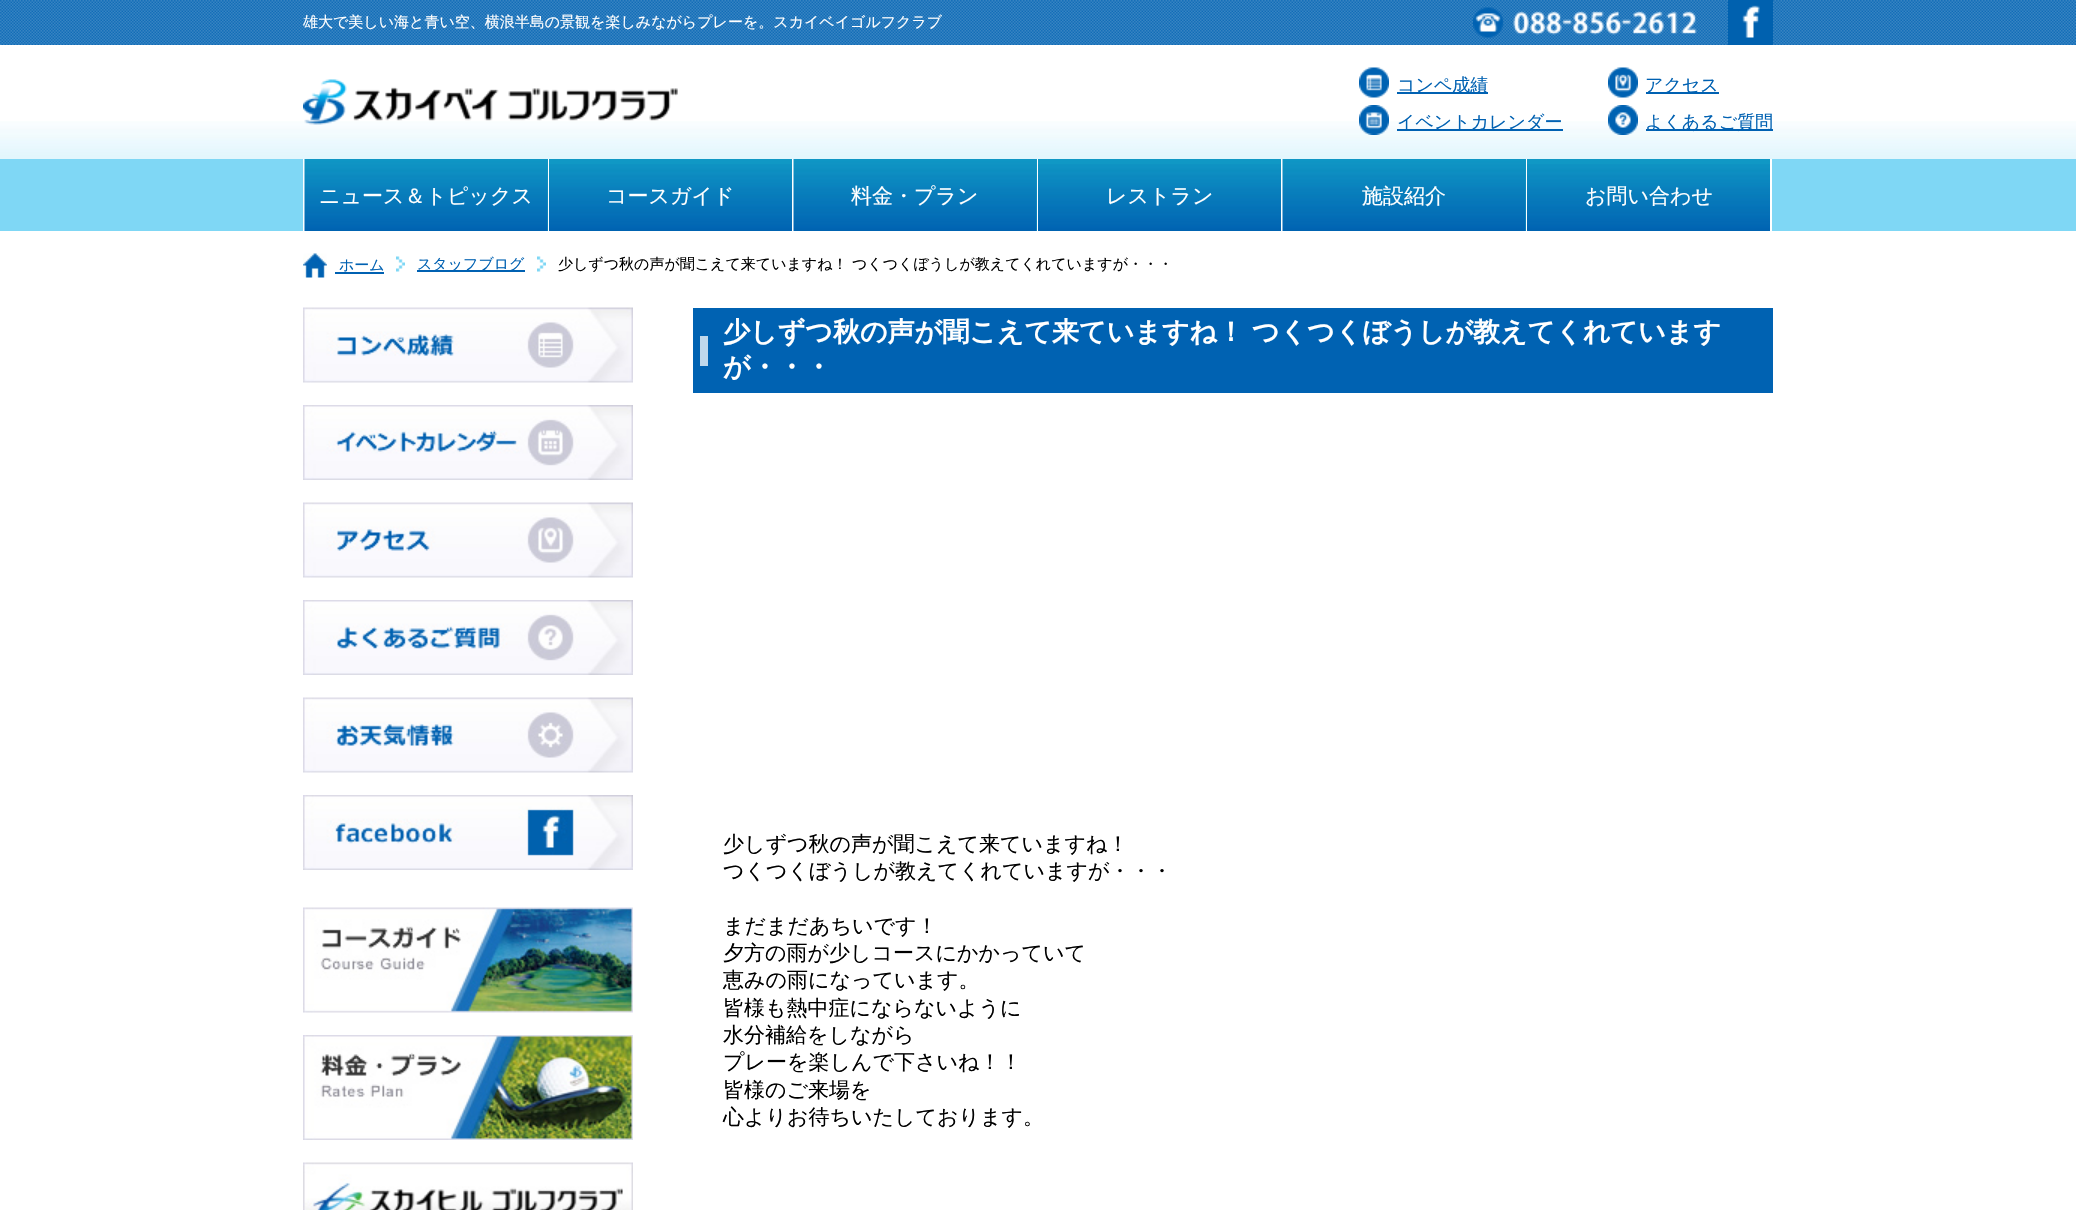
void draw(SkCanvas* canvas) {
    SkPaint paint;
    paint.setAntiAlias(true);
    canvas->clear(0xFFFFFFFF);
    canvas->drawImageRect(SkImages::DeferredFromEncodedData(SkData::MakeFromFileName("img1.png")), SkRect::MakeXYWH(0, 0, 2076, 45), SkSamplingOptions());
    SkFont font1(fontMgr->matchFamilyStyle("WenQuanYi Zen Hei", SkFontStyle(500, SkFontStyle::kNormal_Width, SkFontStyle::kUpright_Slant)), 15);
    font1.setSubpixel(true);
    paint.setColor(0xFFFFFFFF);
    canvas->drawString("雄大で美しい海と青い空、横浪半島の景観を楽しみながらプレーを。スカイベイゴルフクラブ", 303, 27, font1, paint);
    canvas->drawImageRect(SkImages::DeferredFromEncodedData(SkData::MakeFromFileName("img2.png")), SkRect::MakeXYWH(1473, 7, 224, 31), SkSamplingOptions());
    canvas->drawImageRect(SkImages::DeferredFromEncodedData(SkData::MakeFromFileName("img3.png")), SkRect::MakeXYWH(1728, 0, 45, 45), SkSamplingOptions());
    canvas->drawImageRect(SkImages::DeferredFromEncodedData(SkData::MakeFromFileName("img4.png")), SkRect::MakeXYWH(0, 121, 2076, 38), SkSamplingOptions());
    canvas->drawImageRect(SkImages::DeferredFromEncodedData(SkData::MakeFromFileName("img5.png")), SkRect::MakeXYWH(303, 79, 375, 46), SkSamplingOptions());
    canvas->drawImageRect(SkImages::DeferredFromEncodedData(SkData::MakeFromFileName("img6.png")), SkRect::MakeXYWH(1359, 67, 30, 31), SkSamplingOptions());
    paint.setColor(0xFF0061B2);
    canvas->drawRect(SkRect::MakeXYWH(1397, 92, 91, 2), paint);
    SkFont font2(fontMgr->matchFamilyStyle("WenQuanYi Zen Hei", SkFontStyle(500, SkFontStyle::kNormal_Width, SkFontStyle::kUpright_Slant)), 18);
    font2.setSubpixel(true);
    canvas->drawString("コンペ成績", 1397, 91, font2, paint);
    canvas->drawImageRect(SkImages::DeferredFromEncodedData(SkData::MakeFromFileName("img7.png")), SkRect::MakeXYWH(1359, 105, 30, 30), SkSamplingOptions());
    canvas->drawRect(SkRect::MakeXYWH(1397, 129, 166, 2), paint);
    canvas->drawString("イベントカレンダー", 1397, 128, font2, paint);
    canvas->drawImageRect(SkImages::DeferredFromEncodedData(SkData::MakeFromFileName("img8.png")), SkRect::MakeXYWH(1608, 67, 30, 31), SkSamplingOptions());
    canvas->drawRect(SkRect::MakeXYWH(1646, 92, 73, 2), paint);
    canvas->drawString("アクセス", 1645, 91, font2, paint);
    canvas->drawImageRect(SkImages::DeferredFromEncodedData(SkData::MakeFromFileName("img9.png")), SkRect::MakeXYWH(1608, 105, 30, 30), SkSamplingOptions());
    canvas->drawRect(SkRect::MakeXYWH(1646, 129, 127, 2), paint);
    canvas->drawString("よくあるご質問", 1645, 128, font2, paint);
    paint.setColor(0xFF7FD7F5);
    canvas->drawRect(SkRect::MakeXYWH(0, 159, 2076, 72), paint);
    paint.setColor(0xFFFFFFFF);
    canvas->drawRect(SkRect::MakeXYWH(303, 159, 2, 72), paint);
    canvas->drawRect(SkRect::MakeXYWH(548, 159, 1, 72), paint);
    paint.setColor(0xFF1098C5);
    canvas->drawRect(SkRect::MakeXYWH(547, 159, 1, 72), paint);
    canvas->drawImageRect(SkImages::DeferredFromEncodedData(SkData::MakeFromFileName("img10.png")), SkRect::MakeXYWH(304, 159, 244, 72), SkSamplingOptions());
    SkFont font3(fontMgr->matchFamilyStyle("WenQuanYi Zen Hei", SkFontStyle(500, SkFontStyle::kNormal_Width, SkFontStyle::kUpright_Slant)), 21);
    font3.setSubpixel(true);
    paint.setColor(0xFFFFFFFF);
    canvas->drawString("ニュース＆トピックス", 319, 203, font3, paint);
    canvas->drawRect(SkRect::MakeXYWH(792, 159, 2, 72), paint);
    paint.setColor(0xFF1098C5);
    canvas->drawRect(SkRect::MakeXYWH(549, 159, 243, 5), paint);
    canvas->drawImageRect(SkImages::DeferredFromEncodedData(SkData::MakeFromFileName("img11.png")), SkRect::MakeXYWH(549, 164, 243, 67), SkSamplingOptions());
    paint.setColor(0xFFFFFFFF);
    canvas->drawString("コースガイド", 606, 203, font3, paint);
    canvas->drawRect(SkRect::MakeXYWH(1037, 159, 1, 72), paint);
    paint.setColor(0xFF1098C5);
    canvas->drawRect(SkRect::MakeXYWH(1036, 159, 1, 72), paint);
    canvas->drawImageRect(SkImages::DeferredFromEncodedData(SkData::MakeFromFileName("img10.png")), SkRect::MakeXYWH(793, 159, 244, 72), SkSamplingOptions());
    paint.setColor(0xFFFFFFFF);
    canvas->drawString("料金・プラン", 851, 203, font3, paint);
    canvas->drawRect(SkRect::MakeXYWH(1281, 159, 2, 72), paint);
    paint.setColor(0xFF1098C5);
    canvas->drawRect(SkRect::MakeXYWH(1038, 159, 243, 5), paint);
    canvas->drawImageRect(SkImages::DeferredFromEncodedData(SkData::MakeFromFileName("img11.png")), SkRect::MakeXYWH(1038, 164, 243, 67), SkSamplingOptions());
    paint.setColor(0xFFFFFFFF);
    canvas->drawString("レストラン", 1106, 203, font3, paint);
    canvas->drawRect(SkRect::MakeXYWH(1526, 159, 1, 72), paint);
    paint.setColor(0xFF1098C5);
    canvas->drawRect(SkRect::MakeXYWH(1525, 159, 1, 72), paint);
    canvas->drawImageRect(SkImages::DeferredFromEncodedData(SkData::MakeFromFileName("img10.png")), SkRect::MakeXYWH(1282, 159, 244, 72), SkSamplingOptions());
    paint.setColor(0xFFFFFFFF);
    canvas->drawString("施設紹介", 1362, 203, font3, paint);
    canvas->drawRect(SkRect::MakeXYWH(1770, 159, 2, 72), paint);
    paint.setColor(0xFF1098C5);
    canvas->drawRect(SkRect::MakeXYWH(1527, 159, 243, 5), paint);
    canvas->drawImageRect(SkImages::DeferredFromEncodedData(SkData::MakeFromFileName("img11.png")), SkRect::MakeXYWH(1527, 164, 243, 67), SkSamplingOptions());
    paint.setColor(0xFFFFFFFF);
    canvas->drawString("お問い合わせ", 1585, 203, font3, paint);
    canvas->drawImageRect(SkImages::DeferredFromEncodedData(SkData::MakeFromFileName("img12.png")), SkRect::MakeXYWH(303, 253, 24, 25), SkSamplingOptions());
    paint.setColor(0xFF0061B2);
    canvas->drawString("ホーム", 339, 270, font1, paint);
    canvas->drawRect(SkRect::MakeXYWH(335, 272, 49, 2), paint);
    canvas->drawImageRect(SkImages::DeferredFromEncodedData(SkData::MakeFromFileName("img13.png")), SkRect::MakeXYWH(396, 256, 9, 16), SkSamplingOptions());
    canvas->drawRect(SkRect::MakeXYWH(417, 270, 108, 2), paint);
    canvas->drawString("スタッフブログ", 417, 269, font1, paint);
    canvas->drawImageRect(SkImages::DeferredFromEncodedData(SkData::MakeFromFileName("img13.png")), SkRect::MakeXYWH(537, 256, 9, 16), SkSamplingOptions());
    paint.setColor(0xFF000000);
    canvas->drawString("少しずつ秋の声が聞こえて来ていますね！", 558, 269, font1, paint);
    canvas->drawString("つくつくぼうしが教えてくれていますが・・・", 852, 269, font1, paint);
    canvas->drawImageRect(SkImages::DeferredFromEncodedData(SkData::MakeFromFileName("img14.png")), SkRect::MakeXYWH(303, 307, 330, 76), SkSamplingOptions());
    canvas->drawImageRect(SkImages::DeferredFromEncodedData(SkData::MakeFromFileName("img15.png")), SkRect::MakeXYWH(303, 405, 330, 75), SkSamplingOptions());
    canvas->drawImageRect(SkImages::DeferredFromEncodedData(SkData::MakeFromFileName("img16.png")), SkRect::MakeXYWH(303, 502, 330, 76), SkSamplingOptions());
    canvas->drawImageRect(SkImages::DeferredFromEncodedData(SkData::MakeFromFileName("img17.png")), SkRect::MakeXYWH(303, 600, 330, 75), SkSamplingOptions());
    canvas->drawImageRect(SkImages::DeferredFromEncodedData(SkData::MakeFromFileName("img18.png")), SkRect::MakeXYWH(303, 697, 330, 76), SkSamplingOptions());
    canvas->drawImageRect(SkImages::DeferredFromEncodedData(SkData::MakeFromFileName("img19.png")), SkRect::MakeXYWH(303, 795, 330, 75), SkSamplingOptions());
    canvas->drawImageRect(SkImages::DeferredFromEncodedData(SkData::MakeFromFileName("img20.png")), SkRect::MakeXYWH(303, 907, 330, 106), SkSamplingOptions());
    canvas->drawImageRect(SkImages::DeferredFromEncodedData(SkData::MakeFromFileName("img21.png")), SkRect::MakeXYWH(303, 1035, 330, 105), SkSamplingOptions());
    canvas->drawImageRect(SkImages::DeferredFromEncodedData(SkData::MakeFromFileName("img22.png")), SkRect::MakeXYWH(303, 1162, 330, 48), SkSamplingOptions());
    paint.setColor(0xFF0062B2);
    canvas->drawRect(SkRect::MakeXYWH(693, 308, 1080, 85), paint);
    paint.setColor(0xFFBFD8EC);
    canvas->drawRect(SkRect::MakeXYWH(700, 336, 8, 30), paint);
    SkFont font4(fontMgr->matchFamilyStyle("WenQuanYi Zen Hei", SkFontStyle::Bold()), 27);
    font4.setSubpixel(true);
    paint.setColor(0xFFFFFFFF);
    canvas->drawString("少しずつ秋の声が聞こえて来ていますね！", 723, 341, font4, paint);
    canvas->drawString("つくつくぼうしが教えてくれています", 1252, 341, font4, paint);
    canvas->drawString("が・・・", 723, 376, font4, paint);
    paint.setColor(0xFF000000);
    canvas->drawString("少しずつ秋の声が聞こえて来ていますね！", 723, 851, font3, paint);
    canvas->drawString("つくつくぼうしが教えてくれていますが・・・", 723, 878, font3, paint);
    canvas->drawString("まだまだあちいです！", 723, 933, font3, paint);
    canvas->drawString("夕方の雨が少しコースにかかっていて", 723, 960, font3, paint);
    canvas->drawString("恵みの雨になっています。", 723, 987, font3, paint);
    canvas->drawString("皆様も熱中症にならないように", 723, 1015, font3, paint);
    canvas->drawString("水分補給をしながら", 723, 1042, font3, paint);
    canvas->drawString("プレーを楽しんで下さいね！！", 723, 1069, font3, paint);
    canvas->drawString("皆様のご来場を", 723, 1097, font3, paint);
    canvas->drawString("心よりお待ちいたしております。", 723, 1124, font3, paint);
}
